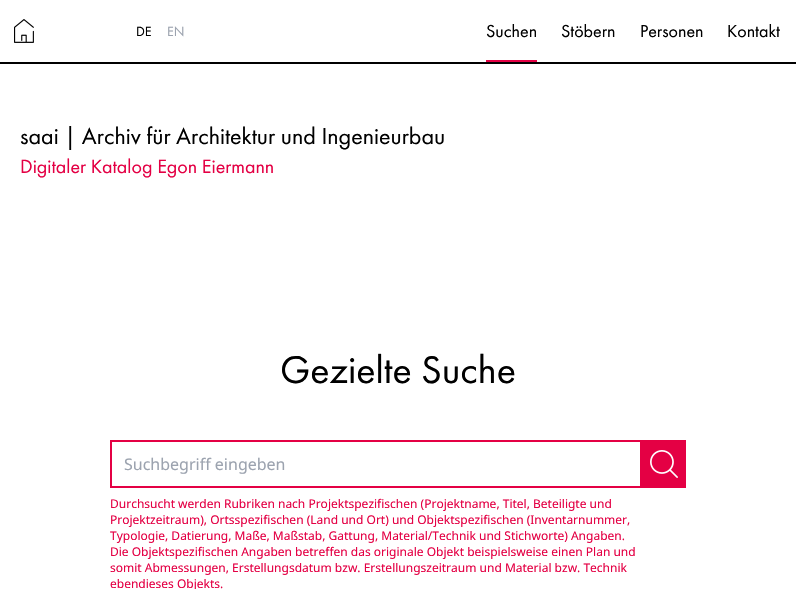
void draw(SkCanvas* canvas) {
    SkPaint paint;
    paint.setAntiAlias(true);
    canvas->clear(0xFFFFFFFF);
    paint.setColor(0xFF000000);
    canvas->drawRect(SkRect::MakeXYWH(0, 62, 796, 2), paint);
    canvas->drawImageRect(SkImages::DeferredFromEncodedData(SkData::MakeFromFileName("img1.png")), SkRect::MakeXYWH(14, 19, 20, 24), SkSamplingOptions());
    SkFont font1(fontMgr->matchFamilyStyle("Futura PT", SkFontStyle::Normal()), 14);
    font1.setSubpixel(true);
    canvas->drawString("DE", 136, 36, font1, paint);
    paint.setColor(0xFF9CA3AF);
    canvas->drawString("EN", 167, 36, font1, paint);
    SkFont font2(fontMgr->matchFamilyStyle("Futura PT", SkFontStyle::Normal()), 18);
    font2.setSubpixel(true);
    paint.setColor(0xFF000000);
    canvas->drawString("Suchen", 486, 37, font2, paint);
    paint.setColor(0xFFE40044);
    canvas->drawRect(SkRect::MakeXYWH(486, 60, 51, 2), paint);
    paint.setColor(0xFF000000);
    canvas->drawString("Stöbern", 561, 37, font2, paint);
    canvas->drawString("Personen", 640, 37, font2, paint);
    canvas->drawString("Kontakt", 727, 37, font2, paint);
    SkFont font3(fontMgr->matchFamilyStyle("Futura PT", SkFontStyle::Normal()), 24);
    font3.setSubpixel(true);
    canvas->drawString("saai | Archiv für Architektur und Ingenieurbau", 20, 144, font3, paint);
    SkFont font4(fontMgr->matchFamilyStyle("Futura PT", SkFontStyle::Normal()), 20);
    font4.setSubpixel(true);
    paint.setColor(0xFFE40044);
    canvas->drawString("Digitaler Katalog Egon Eiermann", 20, 173, font4, paint);
    SkFont font5(fontMgr->matchFamilyStyle("Futura PT", SkFontStyle::Normal()), 40);
    font5.setSubpixel(true);
    paint.setColor(0xFF000000);
    canvas->drawString("Gezielte Suche", 280, 383, font5, paint);
    paint.setStyle(SkPaint::kStroke_Style);
    paint.setStrokeWidth(2);
    paint.setColor(0xFFE40044);
    canvas->drawRect(SkRect::MakeXYWH(111, 441, 530, 46), paint);
    SkFont font6(fontMgr->matchFamilyStyle("Noto Sans", SkFontStyle::Normal()), 16);
    font6.setSubpixel(true);
    paint.setStyle(SkPaint::kFill_Style);
    paint.setColor(0xFF9CA3AF);
    canvas->drawString("Suchbegriff eingeben", 124, 470, font6, paint);
    paint.setColor(0xFFE40044);
    canvas->drawRect(SkRect::MakeXYWH(642, 440, 44, 48), paint);
    canvas->drawImageRect(SkImages::DeferredFromEncodedData(SkData::MakeFromFileName("img2.png")), SkRect::MakeXYWH(650, 450, 28, 28), SkSamplingOptions());
    SkFont font7(fontMgr->matchFamilyStyle("Noto Sans", SkFontStyle::Normal()), 12);
    font7.setSubpixel(true);
    canvas->drawString("Durchsucht werden Rubriken nach Projektspezifischen (Projektname, Titel, Beteiligte und", 110, 508, font7, paint);
    canvas->drawString("Projektzeitraum), Ortsspezifischen (Land und Ort) und Objektspezifischen (Inventarnummer,", 110, 524, font7, paint);
    canvas->drawString("Typologie, Datierung, Maße, Maßstab, Gattung, Material/Technik und Stichworte) Angaben.", 110, 540, font7, paint);
    canvas->drawString("Die Objektspezifischen Angaben betreffen das originale Objekt beispielsweise einen Plan und", 110, 556, font7, paint);
    canvas->drawString("somit Abmessungen, Erstellungsdatum bzw. Erstellungszeitraum und Material bzw. Technik", 110, 572, font7, paint);
    canvas->drawString("ebendieses Objekts.", 110, 588, font7, paint);
}
